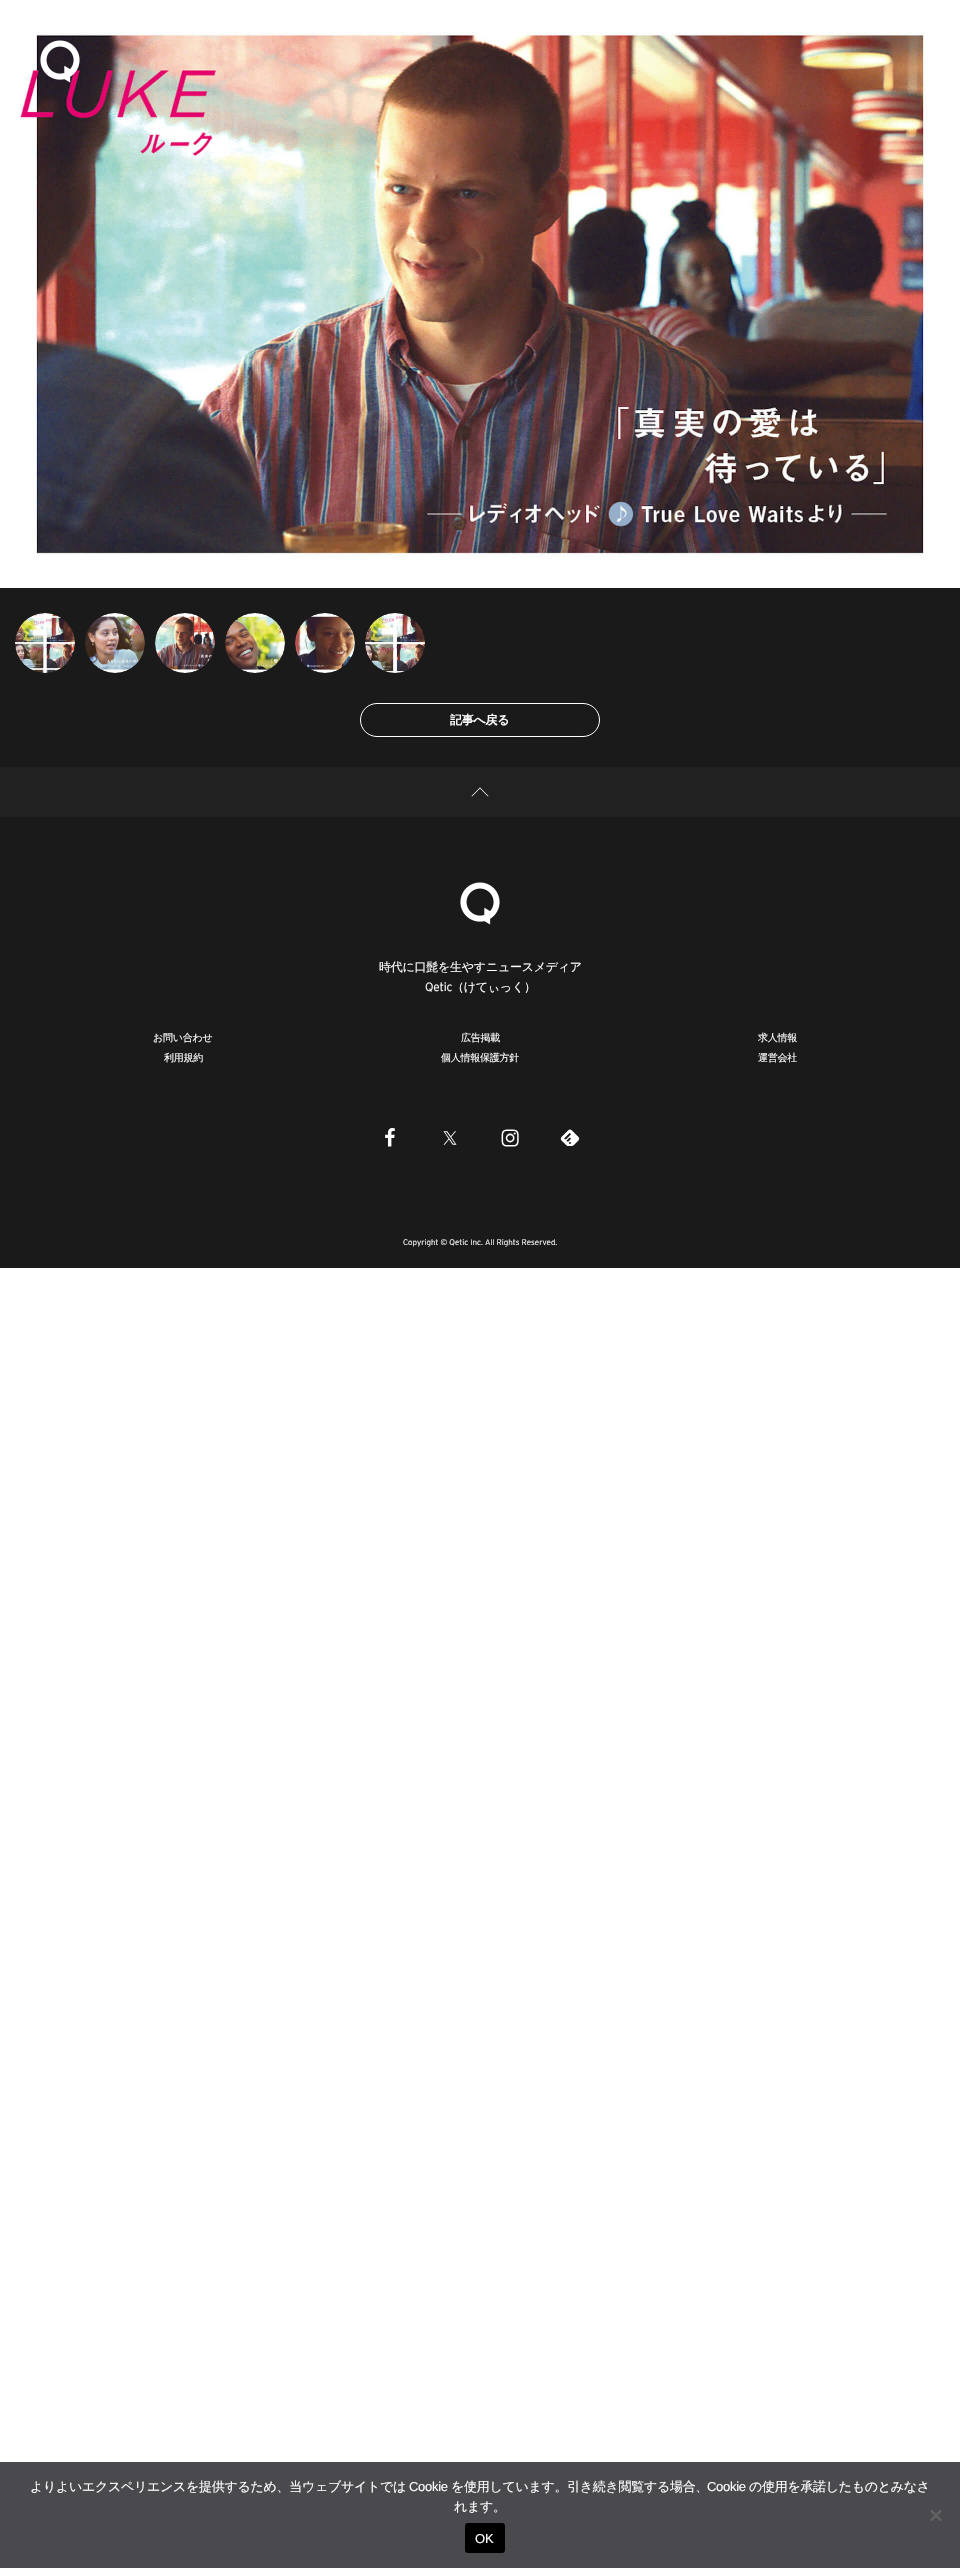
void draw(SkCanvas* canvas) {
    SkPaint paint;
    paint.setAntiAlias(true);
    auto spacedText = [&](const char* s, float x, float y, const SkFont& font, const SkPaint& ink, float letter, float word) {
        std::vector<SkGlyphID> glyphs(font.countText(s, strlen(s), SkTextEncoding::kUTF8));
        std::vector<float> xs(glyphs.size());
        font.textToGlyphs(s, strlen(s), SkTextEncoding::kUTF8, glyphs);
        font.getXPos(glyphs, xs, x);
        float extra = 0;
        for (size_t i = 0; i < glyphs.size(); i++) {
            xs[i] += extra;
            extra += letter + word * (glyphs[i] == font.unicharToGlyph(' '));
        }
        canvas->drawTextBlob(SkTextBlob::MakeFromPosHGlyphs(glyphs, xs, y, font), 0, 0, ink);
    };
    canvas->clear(0xFFFFFFFF);
    canvas->drawImageRect(SkImages::DeferredFromEncodedData(SkData::MakeFromFileName("img2.png")), SkRect::MakeXYWH(0, 0, 960, 588), SkSamplingOptions());
    canvas->drawImageRect(SkImages::DeferredFromEncodedData(SkData::MakeFromFileName("img1.png")), SkRect::MakeXYWH(40, 40, 40, 43), SkSamplingOptions());
    paint.setColor(0xFF1A1A1A);
    canvas->drawRect(SkRect::MakeXYWH(0, 588, 960, 179), paint);
    canvas->drawImageRect(SkImages::DeferredFromEncodedData(SkData::MakeFromFileName("img3.png")), SkRect::MakeXYWH(15, 613, 60, 60), SkSamplingOptions());
    canvas->drawImageRect(SkImages::DeferredFromEncodedData(SkData::MakeFromFileName("img4.png")), SkRect::MakeXYWH(85, 613, 60, 60), SkSamplingOptions());
    canvas->drawImageRect(SkImages::DeferredFromEncodedData(SkData::MakeFromFileName("img5.png")), SkRect::MakeXYWH(155, 613, 60, 60), SkSamplingOptions());
    canvas->drawImageRect(SkImages::DeferredFromEncodedData(SkData::MakeFromFileName("img6.png")), SkRect::MakeXYWH(225, 613, 60, 60), SkSamplingOptions());
    canvas->drawImageRect(SkImages::DeferredFromEncodedData(SkData::MakeFromFileName("img7.png")), SkRect::MakeXYWH(295, 613, 60, 60), SkSamplingOptions());
    canvas->drawImageRect(SkImages::DeferredFromEncodedData(SkData::MakeFromFileName("img8.png")), SkRect::MakeXYWH(365, 613, 60, 60), SkSamplingOptions());
    paint.setStyle(SkPaint::kStroke_Style);
    paint.setStrokeWidth(1);
    paint.setColor(0xFFFFFFFF);
    canvas->drawRoundRect(SkRect::MakeXYWH(360.5f, 703.5f, 239, 33), 16.5f, 16.5f, paint);
    SkFont font1(fontMgr->matchFamilyStyle("WenQuanYi Zen Hei", SkFontStyle::Bold()), 12);
    font1.setSubpixel(true);
    paint.setStyle(SkPaint::kFill_Style);
    spacedText("記事へ戻る", 450, 724, font1, paint, -0.25f, 0);
    paint.setColor(0xFF1A1A1A);
    canvas->drawRect(SkRect::MakeXYWH(0, 817, 960, 451), paint);
    paint.setColor(0xFF212121);
    canvas->drawRect(SkRect::MakeXYWH(0, 767, 960, 50), paint);
    paint.setColor(0xFFFFFFFF);
    canvas->drawPath(SkPathBuilder().moveTo(471.5f, 796).lineTo(480, 787.5f).lineTo(480.5f, 788).lineTo(472, 796.5f).close().detach(), paint);
    canvas->drawPath(SkPathBuilder().moveTo(480, 787.5f).lineTo(488.5f, 796).lineTo(488, 796.5f).lineTo(479.5f, 788).close().detach(), paint);
    canvas->drawImageRect(SkImages::DeferredFromEncodedData(SkData::MakeFromFileName("img9.png")), SkRect::MakeXYWH(460, 882, 40, 43), SkSamplingOptions());
    SkFont font2(fontMgr->matchFamilyStyle("WenQuanYi Zen Hei", SkFontStyle(500, SkFontStyle::kNormal_Width, SkFontStyle::kUpright_Slant)), 12);
    font2.setSubpixel(true);
    spacedText("時代に口髭を生やすニュースメディア", 379, 971, font2, paint, -0.25f, 0);
    SkFont font3(fontMgr->matchFamilyStyle("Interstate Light", SkFontStyle(300, SkFontStyle::kNormal_Width, SkFontStyle::kUpright_Slant)), 12);
    font3.setSubpixel(true);
    spacedText("Qetic", 425, 991, font3, paint, -0.25f, 0);
    spacedText("（けてぃっく）", 452, 991, font2, paint, -0.25f, 0);
    SkFont font4(fontMgr->matchFamilyStyle("WenQuanYi Zen Hei", SkFontStyle(500, SkFontStyle::kNormal_Width, SkFontStyle::kUpright_Slant)), 10);
    font4.setSubpixel(true);
    spacedText("お問い合わせ", 153, 1041, font4, paint, -0.25f, 0);
    spacedText("広告掲載", 461, 1041, font4, paint, -0.25f, 0);
    spacedText("求人情報", 758, 1041, font4, paint, -0.25f, 0);
    spacedText("利用規約", 164, 1061, font4, paint, -0.25f, 0);
    spacedText("個人情報保護方針", 441, 1061, font4, paint, -0.25f, 0);
    spacedText("運営会社", 758, 1061, font4, paint, -0.25f, 0);
    canvas->drawImageRect(SkImages::DeferredFromEncodedData(SkData::MakeFromFileName("img10.png")), SkRect::MakeXYWH(385, 1128, 10, 19), SkSamplingOptions());
    canvas->drawImageRect(SkImages::DeferredFromEncodedData(SkData::MakeFromFileName("img11.png")), SkRect::MakeXYWH(443, 1131, 14, 14), SkSamplingOptions());
    canvas->drawImageRect(SkImages::DeferredFromEncodedData(SkData::MakeFromFileName("img12.png")), SkRect::MakeXYWH(501, 1129, 18, 18), SkSamplingOptions());
    canvas->drawImageRect(SkImages::DeferredFromEncodedData(SkData::MakeFromFileName("img13.png")), SkRect::MakeXYWH(560, 1129, 20, 17), SkSamplingOptions());
    SkFont font5(fontMgr->matchFamilyStyle("Interstate Light", SkFontStyle(300, SkFontStyle::kNormal_Width, SkFontStyle::kUpright_Slant)), 8);
    font5.setSubpixel(true);
    canvas->drawString("Copyright © Qetic Inc. All Rights Reserved.", 403, 1245, font5, paint);
    paint.setColor(0xFF49494E);
    canvas->drawRect(SkRect::MakeXYWH(0, 2462, 960, 106), paint);
    SkFont font6(fontMgr->matchFamilyStyle("WenQuanYi Zen Hei", SkFontStyle(500, SkFontStyle::kNormal_Width, SkFontStyle::kUpright_Slant)), 13);
    font6.setSubpixel(true);
    paint.setColor(0xFFFFFFFF);
    spacedText("よりよいエクスペリエンスを提供するため、当ウェブサイトでは", 30, 2491, font6, paint, -0.3f, 0);
    SkFont font7(fontMgr->matchFamilyStyle("Liberation Sans", SkFontStyle::Normal()), 13);
    font7.setSubpixel(true);
    spacedText("Cookie", 409, 2491, font7, paint, -0.3f, 0);
    spacedText("を使用しています。引き続き閲覧する場合、", 451, 2491, font6, paint, -0.3f, 0);
    spacedText("Cookie", 707, 2491, font7, paint, -0.3f, 0);
    spacedText("の使用を承諾したものとみなさ", 749, 2491, font6, paint, -0.3f, 0);
    spacedText("れます。", 454, 2511, font6, paint, -0.3f, 0);
    paint.setColor(0xFF656567);
    canvas->drawPath(SkPathBuilder().moveTo(940.5f, 2509.5f).lineTo(942, 2511).lineTo(931.5f, 2521.5f).lineTo(930, 2520).close().detach(), paint);
    canvas->drawPath(SkPathBuilder().moveTo(930, 2511).lineTo(931.5f, 2509.5f).lineTo(942, 2520).lineTo(940.5f, 2521.5f).close().detach(), paint);
    paint.setColor(0xFF000000);
    canvas->drawRoundRect(SkRect::MakeXYWH(465, 2523, 40, 30), 3, 3, paint);
    paint.setColor(0xFFFFFFFF);
    canvas->drawString("OK", 475, 2543, font7, paint);
}
